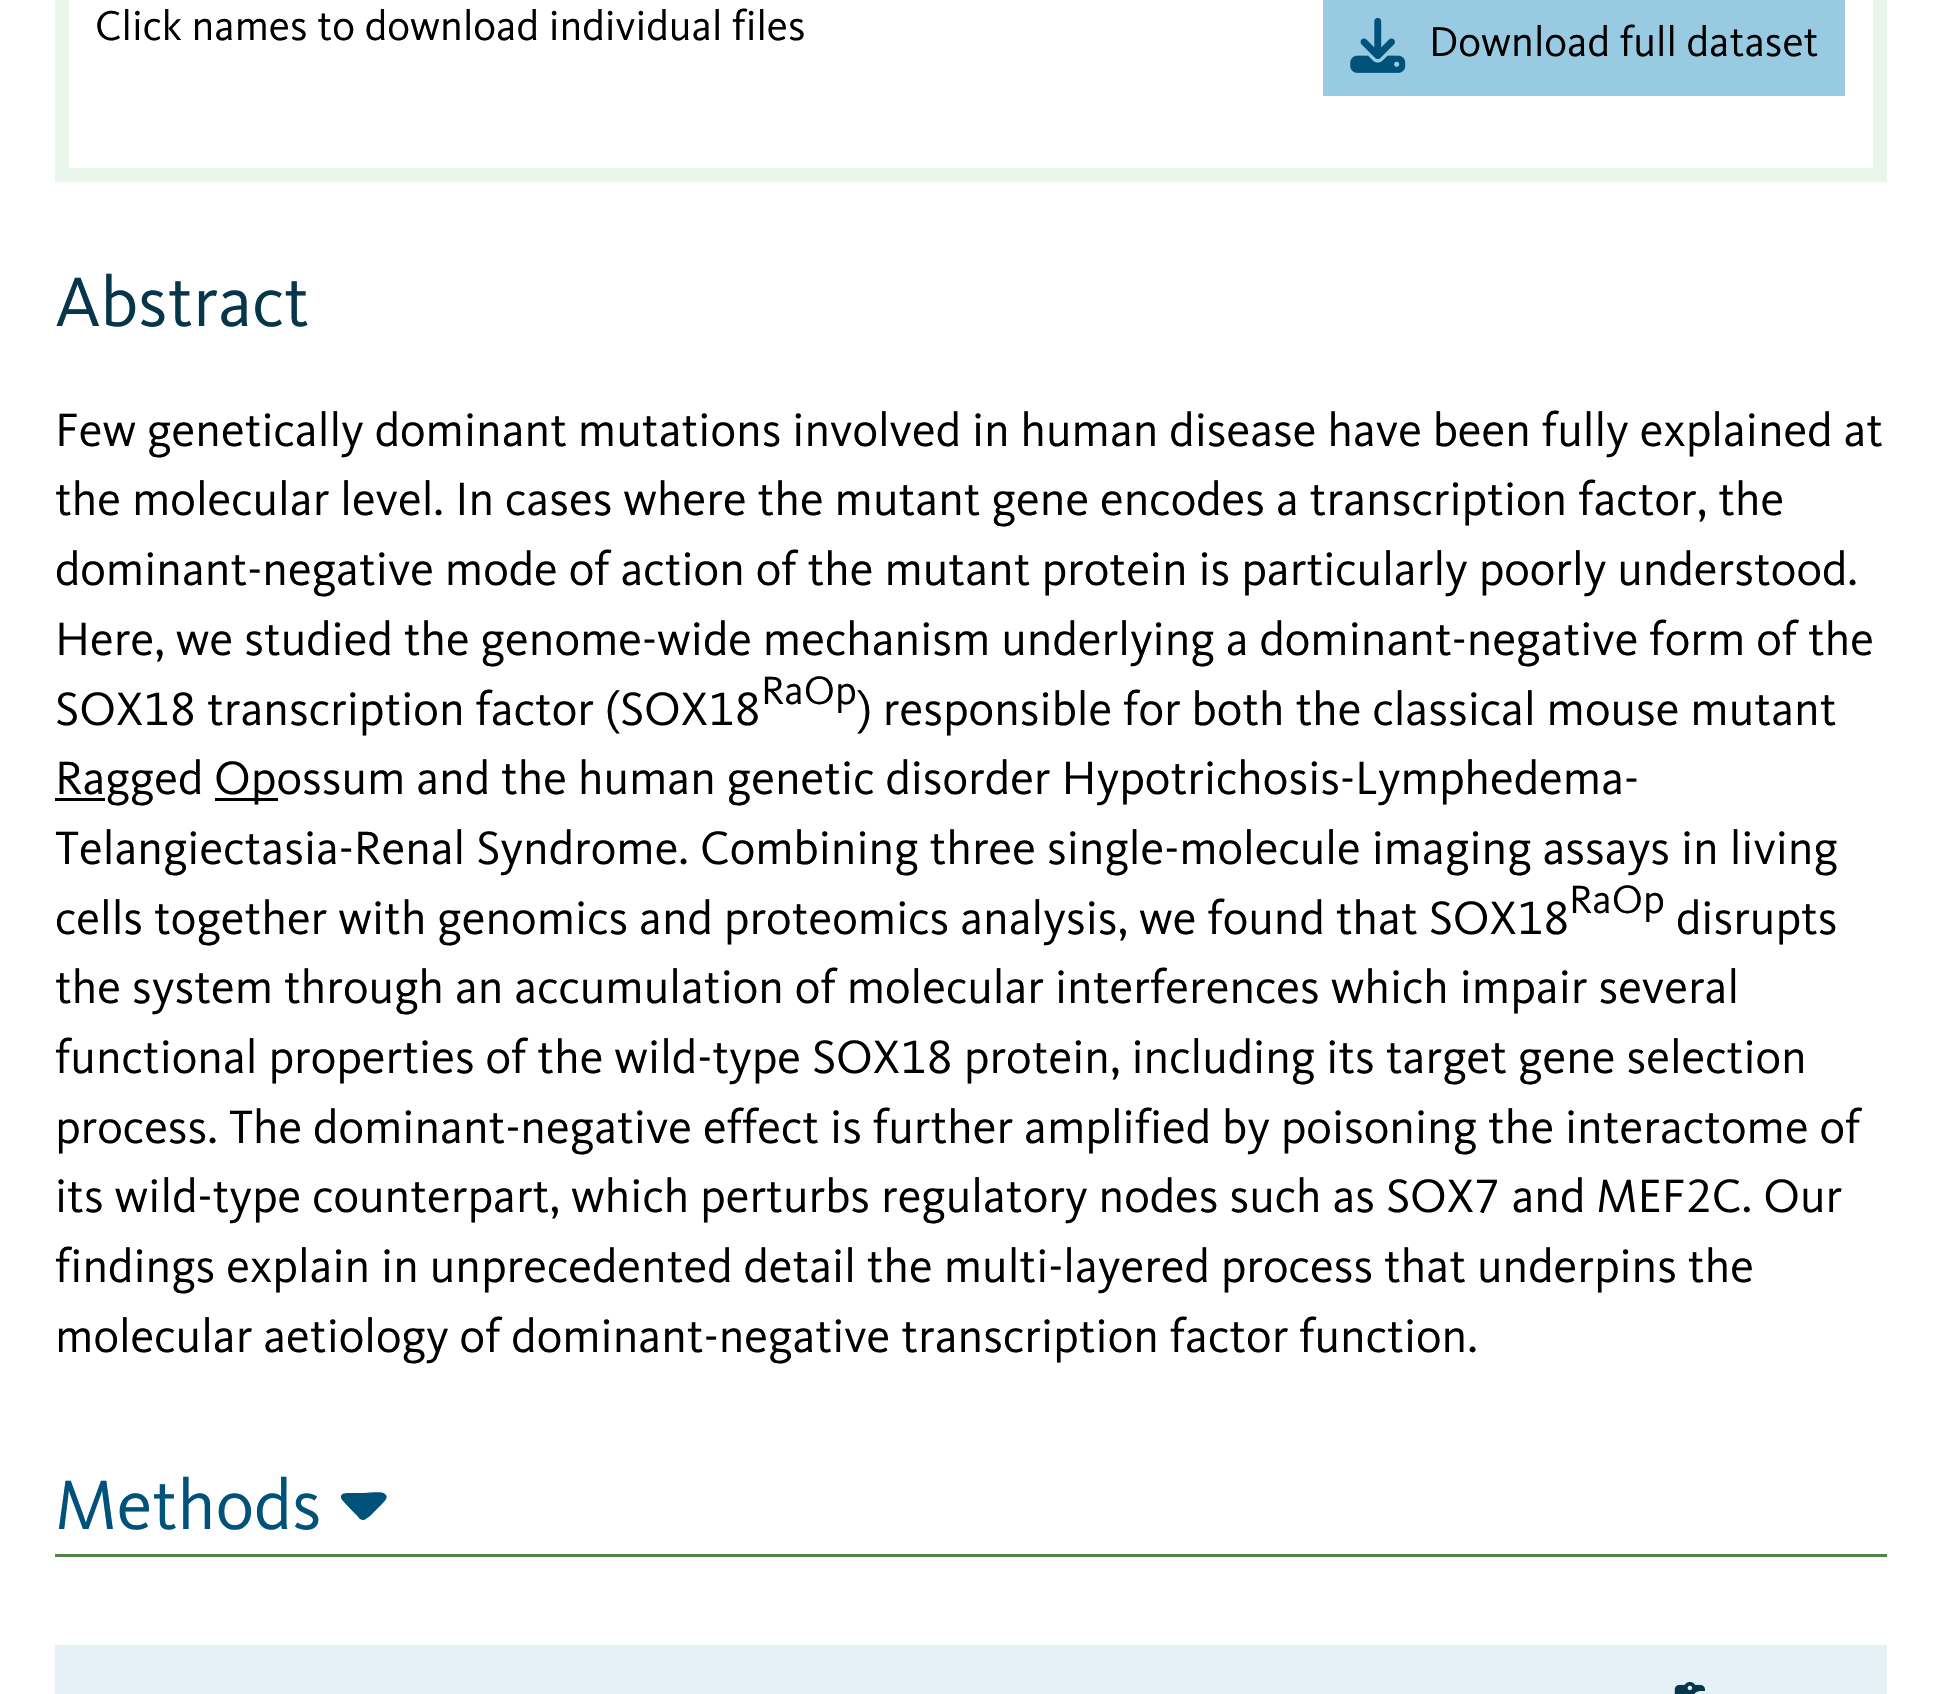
void draw(SkCanvas* canvas) {
    SkPaint paint;
    paint.setAntiAlias(true);
    canvas->clear(0xFFFFFFFF);
    paint.setColor(0xFFEAF5EB);
    canvas->drawRect(SkRect::MakeXYWH(1873, 0, 14, 168), paint);
    canvas->drawRect(SkRect::MakeXYWH(69, 168, 1818, 14), paint);
    canvas->drawRect(SkRect::MakeXYWH(55, 0, 14, 182), paint);
    SkFont font1(fontMgr->matchFamilyStyle("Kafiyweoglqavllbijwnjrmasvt", SkFontStyle::Normal()), 43.1f);
    font1.setSubpixel(true);
    paint.setColor(0xFF000000);
    canvas->drawString("Click names to download individual files", 95, 40, font1, paint);
    paint.setColor(0xFF98CAE2);
    canvas->drawRect(SkRect::MakeXYWH(1323, 0, 522, 96), paint);
    canvas->drawImageRect(SkImages::DeferredFromEncodedData(SkData::MakeFromFileName("img1.png")), SkRect::MakeXYWH(1350, 17, 56, 56), SkSamplingOptions());
    paint.setColor(0xFF000000);
    canvas->drawString("Download full dataset", 1429, 56, font1, paint);
    SkFont font2(fontMgr->matchFamilyStyle("Kafiyweoglqavllbijwnjrmasvt", SkFontStyle::Normal()), 72.5f);
    font2.setSubpixel(true);
    paint.setColor(0xFF07364B);
    canvas->drawString("Abstract", 55, 326, font2, paint);
    SkFont font3(fontMgr->matchFamilyStyle("Kafiyweoglqavllbijwnjrmasvt", SkFontStyle::Normal()), 48.4f);
    font3.setSubpixel(true);
    paint.setColor(0xFF000000);
    canvas->drawString("Few genetically dominant mutations involved in human disease have been fully explained at", 55, 446, font3, paint);
    canvas->drawString("the molecular level. In cases where the mutant gene encodes a transcription factor, the", 55, 515, font3, paint);
    canvas->drawString("dominant-negative mode of action of the mutant protein is particularly poorly understood.", 55, 585, font3, paint);
    canvas->drawString("Here, we studied the genome-wide mechanism underlying a dominant-negative form of the", 55, 655, font3, paint);
    canvas->drawString("SOX18 transcription factor (SOX18", 55, 725, font3, paint);
    SkFont font4(fontMgr->matchFamilyStyle("Kafiyweoglqavllbijwnjrmasvt", SkFontStyle::Normal()), 41);
    font4.setSubpixel(true);
    canvas->drawString("RaOp", 761, 704, font4, paint);
    canvas->drawString(") responsible for both the classical mouse mutant", 857, 725, font3, paint);
    canvas->drawRect(SkRect::MakeXYWH(55, 798, 50, 3), paint);
    canvas->drawString("Ragged", 55, 794, font3, paint);
    canvas->drawRect(SkRect::MakeXYWH(215, 798, 63, 3), paint);
    canvas->drawString("Opossum and the human genetic disorder Hypotrichosis-Lymphedema-", 214, 794, font3, paint);
    canvas->drawString("Telangiectasia-Renal Syndrome. Combining three single-molecule imaging assays in living", 55, 864, font3, paint);
    canvas->drawString("cells together with genomics and proteomics analysis, we found that SOX18", 55, 934, font3, paint);
    canvas->drawString("RaOp", 1569, 913, font4, paint);
    canvas->drawString("disrupts", 1676, 934, font3, paint);
    canvas->drawString("the system through an accumulation of molecular interferences which impair several", 55, 1003, font3, paint);
    canvas->drawString("functional properties of the wild-type SOX18 protein, including its target gene selection", 55, 1073, font3, paint);
    canvas->drawString("process. The dominant-negative effect is further amplified by poisoning the interactome of", 55, 1143, font3, paint);
    canvas->drawString("its wild-type counterpart, which perturbs regulatory nodes such as SOX7 and MEF2C. Our", 55, 1212, font3, paint);
    canvas->drawString("findings explain in unprecedented detail the multi-layered process that underpins the", 55, 1282, font3, paint);
    canvas->drawString("molecular aetiology of dominant-negative transcription factor function.", 55, 1352, font3, paint);
    paint.setColor(0xFF528346);
    canvas->drawRect(SkRect::MakeXYWH(55, 1554, 1832, 3), paint);
    paint.setColor(0xFF00527A);
    canvas->drawString("Methods", 55, 1529, font2, paint);
    canvas->drawPath(SkPathBuilder().moveTo(360, 1519).cubicTo(364, 1522, 367, 1518, 370, 1516).lineTo(382, 1504).cubicTo(385, 1501, 389, 1497, 385, 1494).cubicTo(382, 1491, 368, 1493, 364, 1493).lineTo(352, 1493).cubicTo(348, 1493, 340, 1492, 341, 1498).cubicTo(342, 1501, 357, 1515, 360, 1519).close().detach(), paint);
    paint.setColor(0xFFE4F1F7);
    canvas->drawRect(SkRect::MakeXYWH(55, 1645, 1832, 49), paint);
    canvas->drawImageRect(SkImages::DeferredFromEncodedData(SkData::MakeFromFileName("img2.png")), SkRect::MakeXYWH(1674, 1681, 31, 13), SkSamplingOptions());
}
